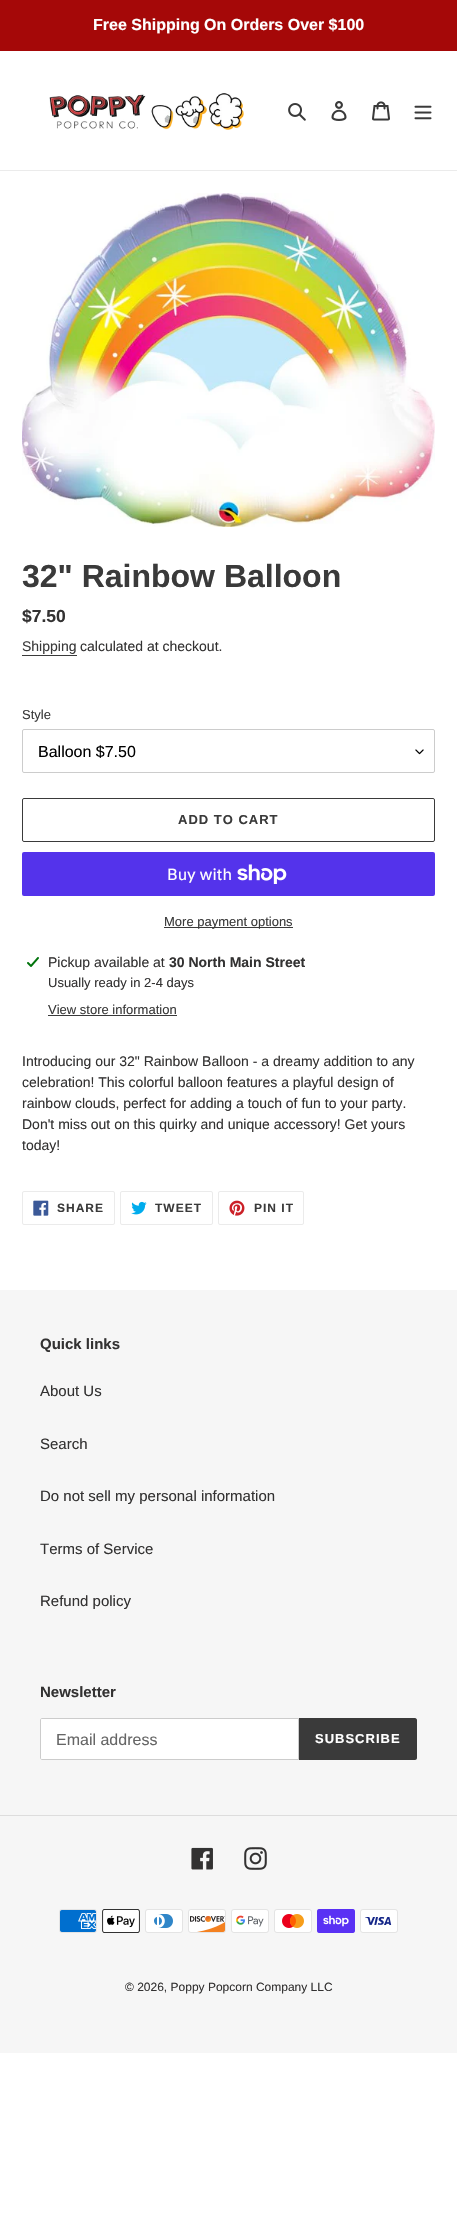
void draw(SkCanvas* canvas) {
    SkPaint paint;
    paint.setAntiAlias(true);
    auto spacedText = [&](const char* s, float x, float y, const SkFont& font, const SkPaint& ink, float letter, float word) {
        std::vector<SkGlyphID> glyphs(font.countText(s, strlen(s), SkTextEncoding::kUTF8));
        std::vector<float> xs(glyphs.size());
        font.textToGlyphs(s, strlen(s), SkTextEncoding::kUTF8, glyphs);
        font.getXPos(glyphs, xs, x);
        float extra = 0;
        for (size_t i = 0; i < glyphs.size(); i++) {
            xs[i] += extra;
            extra += letter + word * (glyphs[i] == font.unicharToGlyph(' '));
        }
        canvas->drawTextBlob(SkTextBlob::MakeFromPosHGlyphs(glyphs, xs, y, font), 0, 0, ink);
    };
    canvas->clear(0xFFFFFFFF);
    paint.setColor(0xFFA50808);
    canvas->drawRect(SkRect::MakeXYWH(0, 0, 457, 51), paint);
    SkFont font1(fontMgr->matchFamilyStyle("Liberation Sans", SkFontStyle::Bold()), 16);
    font1.setSubpixel(true);
    paint.setColor(0xFFFFFFFF);
    canvas->drawString("Free Shipping On Orders Over $100", 93, 30, font1, paint);
    paint.setColor(0xFFEBEBEB);
    canvas->drawRect(SkRect::MakeXYWH(0, 170, 457, 1), paint);
    canvas->drawImageRect(SkImages::DeferredFromEncodedData(SkData::MakeFromFileName("img1.png")), SkRect::MakeXYWH(49, 93, 195, 37), SkSamplingOptions());
    canvas->drawImageRect(SkImages::DeferredFromEncodedData(SkData::MakeFromFileName("img2.png")), SkRect::MakeXYWH(288, 103, 18, 18), SkSamplingOptions());
    canvas->drawImageRect(SkImages::DeferredFromEncodedData(SkData::MakeFromFileName("img3.png")), SkRect::MakeXYWH(331, 101, 16, 20), SkSamplingOptions());
    canvas->drawImageRect(SkImages::DeferredFromEncodedData(SkData::MakeFromFileName("img4.png")), SkRect::MakeXYWH(372, 101, 18, 20), SkSamplingOptions());
    canvas->drawImageRect(SkImages::DeferredFromEncodedData(SkData::MakeFromFileName("img5.png")), SkRect::MakeXYWH(414, 105, 18, 15), SkSamplingOptions());
    canvas->drawImageRect(SkImages::DeferredFromEncodedData(SkData::MakeFromFileName("img6.png")), SkRect::MakeXYWH(22, 193, 413, 334), SkSamplingOptions());
    SkFont font2(fontMgr->matchFamilyStyle("Liberation Sans", SkFontStyle::Bold()), 32);
    font2.setSubpixel(true);
    paint.setColor(0xFF3A3A3A);
    canvas->drawString("32\" Rainbow Balloon", 22, 587, font2, paint);
    SkFont font3(fontMgr->matchFamilyStyle("Liberation Sans", SkFontStyle::Bold()), 17.5f);
    font3.setSubpixel(true);
    paint.setColor(0xFF333232);
    canvas->drawString("$7.50", 22, 622, font3, paint);
    SkFont font4(fontMgr->matchFamilyStyle("Liberation Sans", SkFontStyle::Normal()), 14);
    font4.setSubpixel(true);
    paint.setColor(0xFF3A3A3A);
    canvas->drawString("Shipping", 22, 651, font4, paint);
    canvas->drawRect(SkRect::MakeXYWH(22, 655, 55, 1), paint);
    paint.setColor(0xFF333232);
    canvas->drawString("calculated at checkout.", 80, 651, font4, paint);
    SkFont font5(fontMgr->matchFamilyStyle("Liberation Sans", SkFontStyle::Normal()), 13);
    font5.setSubpixel(true);
    paint.setColor(0xFF3A3A3A);
    canvas->drawString("Style", 22, 719, font5, paint);
    canvas->drawImageRect(SkImages::DeferredFromEncodedData(SkData::MakeFromFileName("img7.png")), SkRect::MakeXYWH(415, 749, 9, 6), SkSamplingOptions());
    paint.setStyle(SkPaint::kStroke_Style);
    paint.setStrokeWidth(1);
    paint.setColor(0xFFCCCCCC);
    canvas->drawRoundRect(SkRect::MakeXYWH(22.5f, 729.5f, 412, 43), 1.5f, 1.5f, paint);
    SkFont font6(fontMgr->matchFamilyStyle("Liberation Sans", SkFontStyle::Normal()), 16);
    font6.setSubpixel(true);
    paint.setStyle(SkPaint::kFill_Style);
    paint.setColor(0xFF000000);
    canvas->drawString("Balloon $7.50", 38, 757, font6, paint);
    paint.setStyle(SkPaint::kStroke_Style);
    paint.setColor(0xFF3A3A3A);
    canvas->drawRoundRect(SkRect::MakeXYWH(22.5f, 798.5f, 412, 43), 1.5f, 1.5f, paint);
    SkFont font7(fontMgr->matchFamilyStyle("Liberation Sans", SkFontStyle::Bold()), 13);
    font7.setSubpixel(true);
    paint.setStyle(SkPaint::kFill_Style);
    spacedText("ADD TO CART", 178, 824, font7, paint, 1, 0);
    paint.setColor(0xFF5433EB);
    canvas->drawRoundRect(SkRect::MakeXYWH(22, 852, 413, 44), 2, 2, paint);
    SkFont font8(fontMgr->matchFamilyStyle("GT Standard", SkFontStyle::Normal()), 16);
    font8.setSubpixel(true);
    paint.setColor(0xFFFFFFFF);
    canvas->drawString("Buy with", 167, 880, font8, paint);
    canvas->drawImageRect(SkImages::DeferredFromEncodedData(SkData::MakeFromFileName("img8.png")), SkRect::MakeXYWH(237, 864, 50, 20), SkSamplingOptions());
    paint.setColor(0xFF3A3A3A);
    canvas->drawRect(SkRect::MakeXYWH(164, 927, 129, 1), paint);
    canvas->drawString("More payment options", 164, 926, font5, paint);
    canvas->drawImageRect(SkImages::DeferredFromEncodedData(SkData::MakeFromFileName("img9.png")), SkRect::MakeXYWH(27, 957, 12, 10), SkSamplingOptions());
    paint.setColor(0xFF333232);
    canvas->drawString("Pickup available at", 48, 967, font4, paint);
    SkFont font9(fontMgr->matchFamilyStyle("Liberation Sans", SkFontStyle::Bold()), 14);
    font9.setSubpixel(true);
    canvas->drawString("30 North Main Street", 169, 967, font9, paint);
    canvas->drawString("Usually ready in 2-4 days", 48, 987, font5, paint);
    paint.setColor(0xFF3A3A3A);
    canvas->drawString("View store information", 48, 1014, font5, paint);
    canvas->drawRect(SkRect::MakeXYWH(48, 1015, 129, 1), paint);
    paint.setColor(0xFF333232);
    canvas->drawString("Introducing our 32\" Rainbow Balloon - a dreamy addition to any", 22, 1066, font4, paint);
    canvas->drawString("celebration! This colorful balloon features a playful design of", 22, 1087, font4, paint);
    canvas->drawString("rainbow clouds, perfect for adding a touch of fun to your party.", 22, 1108, font4, paint);
    canvas->drawString("Don't miss out on this quirky and unique accessory! Get yours", 22, 1129, font4, paint);
    canvas->drawString("today!", 22, 1150, font4, paint);
    paint.setStyle(SkPaint::kStroke_Style);
    paint.setColor(0xFFEBEBEB);
    canvas->drawRoundRect(SkRect::MakeXYWH(22.5f, 1191.5f, 92, 33), 1.5f, 1.5f, paint);
    canvas->drawImageRect(SkImages::DeferredFromEncodedData(SkData::MakeFromFileName("img10.png")), SkRect::MakeXYWH(33, 1200, 16, 16), SkSamplingOptions());
    SkFont font10(fontMgr->matchFamilyStyle("Liberation Sans", SkFontStyle::Bold()), 12);
    font10.setSubpixel(true);
    paint.setStyle(SkPaint::kFill_Style);
    paint.setColor(0xFF3A3A3A);
    spacedText("SHARE", 57, 1212, font10, paint, 1, 0);
    paint.setStyle(SkPaint::kStroke_Style);
    paint.setColor(0xFFEBEBEB);
    canvas->drawRoundRect(SkRect::MakeXYWH(120.5f, 1191.5f, 92, 33), 1.5f, 1.5f, paint);
    canvas->drawImageRect(SkImages::DeferredFromEncodedData(SkData::MakeFromFileName("img11.png")), SkRect::MakeXYWH(131, 1201, 16, 14), SkSamplingOptions());
    paint.setStyle(SkPaint::kFill_Style);
    paint.setColor(0xFF3A3A3A);
    spacedText("TWEET", 155, 1212, font10, paint, 1, 0);
    paint.setStyle(SkPaint::kStroke_Style);
    paint.setColor(0xFFEBEBEB);
    canvas->drawRoundRect(SkRect::MakeXYWH(218.5f, 1191.5f, 85, 33), 1.5f, 1.5f, paint);
    canvas->drawImageRect(SkImages::DeferredFromEncodedData(SkData::MakeFromFileName("img12.png")), SkRect::MakeXYWH(229, 1200, 16, 16), SkSamplingOptions());
    paint.setStyle(SkPaint::kFill_Style);
    paint.setColor(0xFF3A3A3A);
    spacedText("PIN IT", 254, 1212, font10, paint, 1, 0);
    paint.setColor(0xFFF6F6F6);
    canvas->drawRect(SkRect::MakeXYWH(0, 1290, 457, 763), paint);
    SkFont font11(fontMgr->matchFamilyStyle("Liberation Sans", SkFontStyle::Bold()), 15);
    font11.setSubpixel(true);
    paint.setColor(0xFF333232);
    canvas->drawString("Quick links", 40, 1349, font11, paint);
    SkFont font12(fontMgr->matchFamilyStyle("Liberation Sans", SkFontStyle::Normal()), 15);
    font12.setSubpixel(true);
    canvas->drawString("About Us", 40, 1396, font12, paint);
    canvas->drawString("Search", 40, 1449, font12, paint);
    canvas->drawString("Do not sell my personal information", 40, 1501, font12, paint);
    canvas->drawString("Terms of Service", 40, 1554, font12, paint);
    canvas->drawString("Refund policy", 40, 1606, font12, paint);
    canvas->drawString("Newsletter", 40, 1697, font11, paint);
    paint.setColor(0xFFFFFFFF);
    canvas->drawPath(SkPathBuilder().moveTo(42, 1718.5f).lineTo(298.5f, 1718.5f).lineTo(298.5f, 1759.5f).lineTo(42, 1759.5f).cubicTo(41, 1759.5f, 40.5f, 1759, 40.5f, 1758).lineTo(40.5f, 1720).cubicTo(40.5f, 1719, 41, 1718.5f, 42, 1718.5f).close().detach(), paint);
    paint.setStyle(SkPaint::kStroke_Style);
    paint.setColor(0xFFCCCCCC);
    canvas->drawPath(SkPathBuilder().moveTo(42, 1718.5f).lineTo(298.5f, 1718.5f).lineTo(298.5f, 1759.5f).lineTo(42, 1759.5f).cubicTo(41, 1759.5f, 40.5f, 1759, 40.5f, 1758).lineTo(40.5f, 1720).cubicTo(40.5f, 1719, 41, 1718.5f, 42, 1718.5f).close().detach(), paint);
    paint.setStyle(SkPaint::kFill_Style);
    paint.setColor(0xFF666666);
    canvas->drawString("Email address", 56, 1745, font6, paint);
    paint.setColor(0xFF3A3A3A);
    canvas->drawPath(SkPathBuilder().moveTo(299, 1718).lineTo(415, 1718).cubicTo(416, 1718, 417, 1719, 417, 1720).lineTo(417, 1758).cubicTo(417, 1759, 416, 1760, 415, 1760).lineTo(299, 1760).close().detach(), paint);
    paint.setColor(0xFFFFFFFF);
    spacedText("SUBSCRIBE", 315, 1743, font7, paint, 1, 0);
    paint.setColor(0xFFDDDDDD);
    canvas->drawRect(SkRect::MakeXYWH(0, 1815, 457, 1), paint);
    canvas->drawImageRect(SkImages::DeferredFromEncodedData(SkData::MakeFromFileName("img13.png")), SkRect::MakeXYWH(191, 1847, 22, 23), SkSamplingOptions());
    canvas->drawImageRect(SkImages::DeferredFromEncodedData(SkData::MakeFromFileName("img14.png")), SkRect::MakeXYWH(244, 1847, 23, 23), SkSamplingOptions());
    canvas->drawImageRect(SkImages::DeferredFromEncodedData(SkData::MakeFromFileName("img15.png")), SkRect::MakeXYWH(59, 1909, 38, 24), SkSamplingOptions());
    canvas->drawImageRect(SkImages::DeferredFromEncodedData(SkData::MakeFromFileName("img16.png")), SkRect::MakeXYWH(102, 1909, 38, 24), SkSamplingOptions());
    canvas->drawImageRect(SkImages::DeferredFromEncodedData(SkData::MakeFromFileName("img17.png")), SkRect::MakeXYWH(145, 1909, 38, 24), SkSamplingOptions());
    canvas->drawImageRect(SkImages::DeferredFromEncodedData(SkData::MakeFromFileName("img18.png")), SkRect::MakeXYWH(188, 1909, 38, 24), SkSamplingOptions());
    canvas->drawImageRect(SkImages::DeferredFromEncodedData(SkData::MakeFromFileName("img19.png")), SkRect::MakeXYWH(231, 1909, 38, 24), SkSamplingOptions());
    canvas->drawImageRect(SkImages::DeferredFromEncodedData(SkData::MakeFromFileName("img20.png")), SkRect::MakeXYWH(274, 1909, 38, 24), SkSamplingOptions());
    canvas->drawImageRect(SkImages::DeferredFromEncodedData(SkData::MakeFromFileName("img21.png")), SkRect::MakeXYWH(317, 1909, 38, 24), SkSamplingOptions());
    canvas->drawImageRect(SkImages::DeferredFromEncodedData(SkData::MakeFromFileName("img22.png")), SkRect::MakeXYWH(360, 1909, 38, 24), SkSamplingOptions());
    SkFont font13(fontMgr->matchFamilyStyle("Liberation Sans", SkFontStyle::Normal()), 12);
    font13.setSubpixel(true);
    paint.setColor(0xFF333232);
    canvas->drawString("© 2026, Poppy Popcorn Company LLC", 125, 1991, font13, paint);
}
